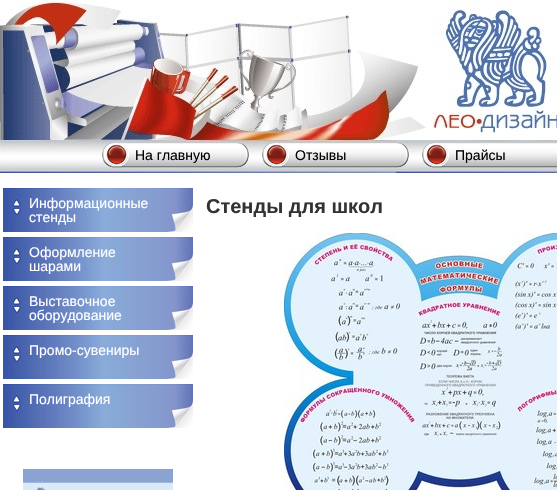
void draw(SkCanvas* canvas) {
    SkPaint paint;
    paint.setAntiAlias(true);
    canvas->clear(0xFFFFFFFF);
    canvas->drawImageRect(SkImages::DeferredFromEncodedData(SkData::MakeFromFileName("img1.png")), SkRect::MakeXYWH(0, 0, 557, 173), SkSamplingOptions());
    canvas->drawImageRect(SkImages::DeferredFromEncodedData(SkData::MakeFromFileName("img2.png")), SkRect::MakeXYWH(102, 142, 147, 26), SkSamplingOptions());
    SkFont font1(fontMgr->matchFamilyStyle("Liberation Sans", SkFontStyle::Normal()), 14);
    font1.setSubpixel(true);
    paint.setColor(0xFF000000);
    canvas->drawString("На главную", 135, 160, font1, paint);
    canvas->drawImageRect(SkImages::DeferredFromEncodedData(SkData::MakeFromFileName("img3.png")), SkRect::MakeXYWH(262, 142, 147, 26), SkSamplingOptions());
    canvas->drawString("Отзывы", 295, 160, font1, paint);
    canvas->drawImageRect(SkImages::DeferredFromEncodedData(SkData::MakeFromFileName("img4.png")), SkRect::MakeXYWH(422, 142, 135, 26), SkSamplingOptions());
    canvas->drawString("Прайсы", 455, 160, font1, paint);
    canvas->drawImageRect(SkImages::DeferredFromEncodedData(SkData::MakeFromFileName("img5.png")), SkRect::MakeXYWH(3, 188, 190, 44), SkSamplingOptions());
    paint.setColor(0xFFFFFFFF);
    canvas->drawString("Информационные", 29, 208, font1, paint);
    canvas->drawString("стенды", 29, 222, font1, paint);
    canvas->drawImageRect(SkImages::DeferredFromEncodedData(SkData::MakeFromFileName("img5.png")), SkRect::MakeXYWH(3, 237, 190, 44), SkSamplingOptions());
    canvas->drawString("Оформление", 29, 257, font1, paint);
    canvas->drawString("шарами", 29, 271, font1, paint);
    canvas->drawImageRect(SkImages::DeferredFromEncodedData(SkData::MakeFromFileName("img5.png")), SkRect::MakeXYWH(3, 286, 190, 44), SkSamplingOptions());
    canvas->drawString("Выставочное", 29, 306, font1, paint);
    canvas->drawString("оборудование", 29, 320, font1, paint);
    canvas->drawImageRect(SkImages::DeferredFromEncodedData(SkData::MakeFromFileName("img5.png")), SkRect::MakeXYWH(3, 335, 190, 44), SkSamplingOptions());
    canvas->drawString("Промо-сувениры", 29, 355, font1, paint);
    canvas->drawImageRect(SkImages::DeferredFromEncodedData(SkData::MakeFromFileName("img5.png")), SkRect::MakeXYWH(3, 384, 190, 44), SkSamplingOptions());
    canvas->drawString("Полиграфия", 29, 404, font1, paint);
    canvas->drawImageRect(SkImages::DeferredFromEncodedData(SkData::MakeFromFileName("img6.png")), SkRect::MakeXYWH(23, 469, 150, 21), SkSamplingOptions());
    SkFont font2(fontMgr->matchFamilyStyle("Liberation Sans", SkFontStyle::Bold()), 20);
    font2.setSubpixel(true);
    paint.setColor(0xFF333333);
    canvas->drawString("Стенды для школ", 206, 213, font2, paint);
    canvas->drawImageRect(SkImages::DeferredFromEncodedData(SkData::MakeFromFileName("img7.png")), SkRect::MakeXYWH(284, 233, 273, 257), SkSamplingOptions());
}
